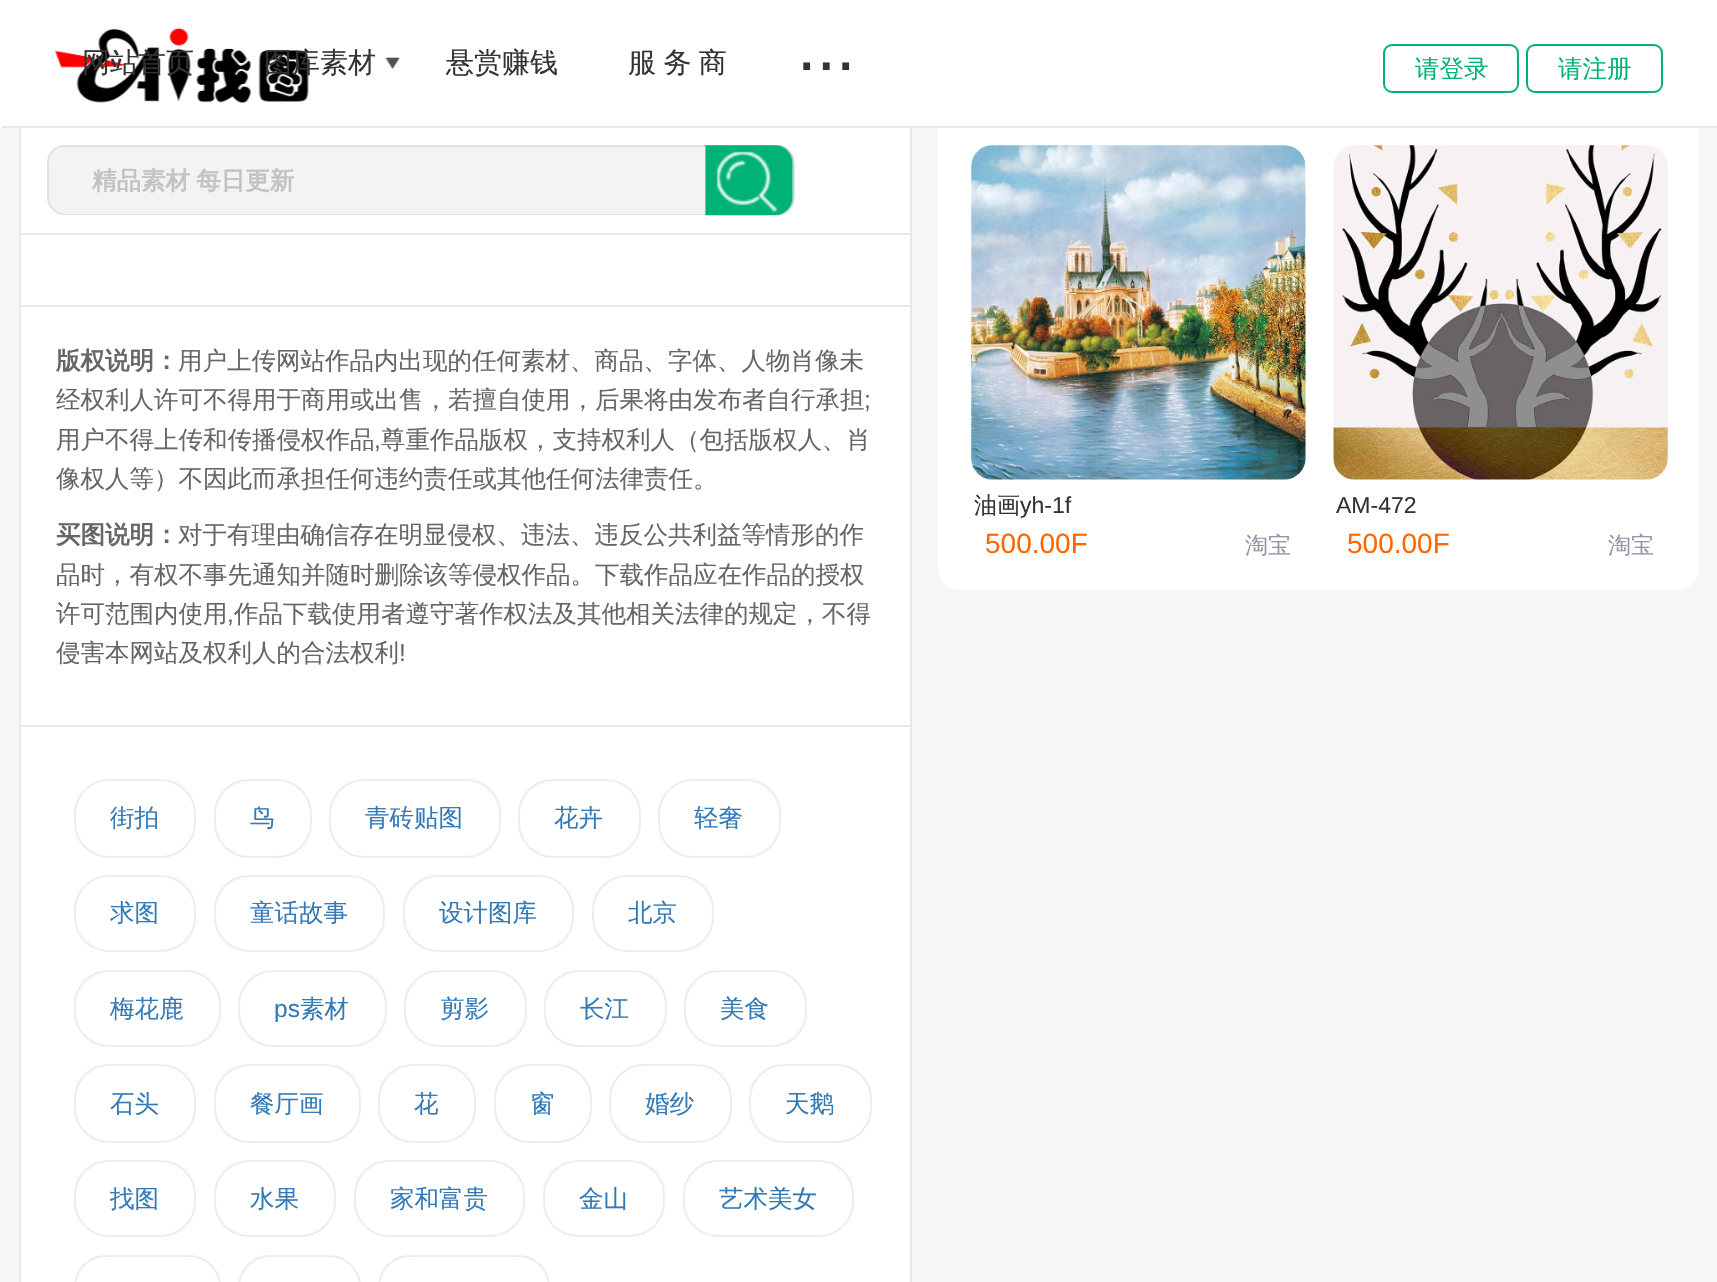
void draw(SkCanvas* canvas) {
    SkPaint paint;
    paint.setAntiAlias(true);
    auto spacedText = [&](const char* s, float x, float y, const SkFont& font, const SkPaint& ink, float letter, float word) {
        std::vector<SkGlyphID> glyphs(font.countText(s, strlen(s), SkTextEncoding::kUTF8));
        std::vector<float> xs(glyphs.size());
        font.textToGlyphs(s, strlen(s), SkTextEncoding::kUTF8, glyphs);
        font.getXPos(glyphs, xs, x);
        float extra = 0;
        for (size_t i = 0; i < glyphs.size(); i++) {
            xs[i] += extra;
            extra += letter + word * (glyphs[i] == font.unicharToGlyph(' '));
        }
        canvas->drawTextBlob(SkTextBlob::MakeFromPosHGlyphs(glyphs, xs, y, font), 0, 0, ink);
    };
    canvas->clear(0xFFF6F6F6);
    paint.setColor(0xFFFFFFFF);
    canvas->drawRect(SkRect::MakeXYWH(21, 128, 889, 1154), paint);
    paint.setStyle(SkPaint::kStroke_Style);
    paint.setStrokeWidth(2);
    paint.setColor(0xFFE8E8E8);
    canvas->drawRect(SkRect::MakeXYWH(20, 106, 891, 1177), paint);
    paint.setStyle(SkPaint::kFill_Style);
    paint.setColor(0xFFFFFFFF);
    canvas->drawRoundRect(SkRect::MakeXYWH(938, 51, 761, 539), 21, 21, paint);
    canvas->drawRect(SkRect::MakeXYWH(2, 0, 1715, 126), paint);
    paint.setColor(0xFFE7E7E7);
    canvas->drawRect(SkRect::MakeXYWH(0, 126, 1717, 2), paint);
    paint.setColor(0xFFFFFFFF);
    canvas->drawRect(SkRect::MakeXYWH(0, 0, 2, 128), paint);
    canvas->drawImageRect(SkImages::DeferredFromEncodedData(SkData::MakeFromFileName("img1.png")), SkRect::MakeXYWH(54, 28, 255, 76), SkSamplingOptions());
    SkFont font1(fontMgr->matchFamilyStyle("WenQuanYi Zen Hei", SkFontStyle(500, SkFontStyle::kNormal_Width, SkFontStyle::kUpright_Slant)), 28);
    font1.setSubpixel(true);
    paint.setColor(0xFF333333);
    canvas->drawString("网站首页", 82, 72, font1, paint);
    canvas->drawString("图库素材", 264, 72, font1, paint);
    canvas->drawImageRect(SkImages::DeferredFromEncodedData(SkData::MakeFromFileName("img2.png")), SkRect::MakeXYWH(385, 57, 15, 12), SkSamplingOptions());
    canvas->drawString("悬赏赚钱", 446, 72, font1, paint);
    spacedText("服 务 商", 628, 72, font1, paint, 0, -1);
    SkFont font2(fontMgr->matchFamilyStyle("Liberation Sans", SkFontStyle::Normal()), 70);
    font2.setSubpixel(true);
    canvas->drawString("...", 797, 70, font2, paint);
    paint.setStyle(SkPaint::kStroke_Style);
    paint.setColor(0xFF00B277);
    canvas->drawRoundRect(SkRect::MakeXYWH(1384, 45, 134, 47), 8, 8, paint);
    SkFont font3(fontMgr->matchFamilyStyle("WenQuanYi Zen Hei", SkFontStyle(500, SkFontStyle::kNormal_Width, SkFontStyle::kUpright_Slant)), 24.5f);
    font3.setSubpixel(true);
    paint.setStyle(SkPaint::kFill_Style);
    canvas->drawString("请登录", 1415, 77, font3, paint);
    paint.setStyle(SkPaint::kStroke_Style);
    canvas->drawRoundRect(SkRect::MakeXYWH(1527, 45, 135, 47), 8, 8, paint);
    paint.setStyle(SkPaint::kFill_Style);
    canvas->drawString("请注册", 1558, 77, font3, paint);
    paint.setStyle(SkPaint::kStroke_Style);
    paint.setColor(0xFFE1E1E1);
    canvas->drawRoundRect(SkRect::MakeXYWH(48, 146, 746, 68), 17, 17, paint);
    canvas->drawImageRect(SkImages::DeferredFromEncodedData(SkData::MakeFromFileName("img3.png")), SkRect::MakeXYWH(704, 145, 90, 71), SkSamplingOptions());
    paint.setStyle(SkPaint::kFill_Style);
    paint.setColor(0xFFF3F3F3);
    canvas->drawPath(SkPathBuilder().moveTo(67, 147).lineTo(705, 147).lineTo(705, 214).lineTo(67, 214).cubicTo(57, 214, 49, 206, 49, 196).lineTo(49, 165).cubicTo(49, 155, 57, 147, 67, 147).close().detach(), paint);
    SkFont font4(fontMgr->matchFamilyStyle("WenQuanYi Zen Hei", SkFontStyle::Bold()), 24.5f);
    font4.setSubpixel(true);
    paint.setColor(0xFFC3C3C3);
    spacedText("精品素材 每日更新", 92, 189, font4, paint, 0, -1);
    paint.setColor(0xFFE8E8E8);
    canvas->drawRect(SkRect::MakeXYWH(21, 233, 889, 2), paint);
    canvas->drawRect(SkRect::MakeXYWH(21, 305, 889, 2), paint);
    paint.setColor(0xFF666666);
    canvas->drawString("版权说明：", 56, 369, font4, paint);
    canvas->drawString("用户上传网站作品内出现的任何素材、商品、字体、人物肖像未", 178, 369, font3, paint);
    canvas->drawString("经权利人许可不得用于商用或出售，若擅自使用，后果将由发布者自行承担", 56, 408, font3, paint);
    SkFont font5(fontMgr->matchFamilyStyle("Liberation Sans", SkFontStyle::Normal()), 24.5f);
    font5.setSubpixel(true);
    canvas->drawString(";", 864, 408, font5, paint);
    canvas->drawString("用户不得上传和传播侵权作品", 56, 448, font3, paint);
    canvas->drawString(",", 374, 448, font5, paint);
    canvas->drawString("尊重作品版权，支持权利人（包括版权人、肖", 381, 448, font3, paint);
    canvas->drawString("像权人等）不因此而承担任何违约责任或其他任何法律责任。", 56, 487, font3, paint);
    canvas->drawString("买图说明：", 56, 543, font4, paint);
    canvas->drawString("对于有理由确信存在明显侵权、违法、违反公共利益等情形的作", 178, 543, font3, paint);
    canvas->drawString("品时，有权不事先通知并随时删除该等侵权作品。下载作品应在作品的授权", 56, 583, font3, paint);
    canvas->drawString("许可范围内使用", 56, 622, font3, paint);
    canvas->drawString(",", 227, 622, font5, paint);
    canvas->drawString("作品下载使用者遵守著作权法及其他相关法律的规定，不得", 234, 622, font3, paint);
    canvas->drawString("侵害本网站及权利人的合法权利", 56, 661, font3, paint);
    canvas->drawString("!", 399, 661, font5, paint);
    paint.setColor(0xFFE8E8E8);
    canvas->drawRect(SkRect::MakeXYWH(21, 725, 889, 2), paint);
    paint.setStyle(SkPaint::kStroke_Style);
    paint.setColor(0xFFECEDEE);
    canvas->drawRoundRect(SkRect::MakeXYWH(75, 780, 120, 77), 34, 34, paint);
    paint.setStyle(SkPaint::kFill_Style);
    paint.setColor(0xFF337AB7);
    canvas->drawString("街拍", 110, 826, font3, paint);
    paint.setStyle(SkPaint::kStroke_Style);
    paint.setColor(0xFFECEDEE);
    canvas->drawRoundRect(SkRect::MakeXYWH(215, 780, 96, 77), 34, 34, paint);
    paint.setStyle(SkPaint::kFill_Style);
    paint.setColor(0xFF337AB7);
    canvas->drawString("鸟", 250, 826, font3, paint);
    paint.setStyle(SkPaint::kStroke_Style);
    paint.setColor(0xFFECEDEE);
    canvas->drawRoundRect(SkRect::MakeXYWH(330, 780, 170, 77), 34, 34, paint);
    paint.setStyle(SkPaint::kFill_Style);
    paint.setColor(0xFF337AB7);
    canvas->drawString("青砖贴图", 365, 826, font3, paint);
    paint.setStyle(SkPaint::kStroke_Style);
    paint.setColor(0xFFECEDEE);
    canvas->drawRoundRect(SkRect::MakeXYWH(519, 780, 121, 77), 34, 34, paint);
    paint.setStyle(SkPaint::kFill_Style);
    paint.setColor(0xFF337AB7);
    canvas->drawString("花卉", 554, 826, font3, paint);
    paint.setStyle(SkPaint::kStroke_Style);
    paint.setColor(0xFFECEDEE);
    canvas->drawRoundRect(SkRect::MakeXYWH(659, 780, 121, 77), 34, 34, paint);
    paint.setStyle(SkPaint::kFill_Style);
    paint.setColor(0xFF337AB7);
    canvas->drawString("轻奢", 694, 826, font3, paint);
    paint.setStyle(SkPaint::kStroke_Style);
    paint.setColor(0xFFECEDEE);
    canvas->drawRoundRect(SkRect::MakeXYWH(75, 876, 120, 75), 34, 34, paint);
    paint.setStyle(SkPaint::kFill_Style);
    paint.setColor(0xFF337AB7);
    canvas->drawString("求图", 110, 921, font3, paint);
    paint.setStyle(SkPaint::kStroke_Style);
    paint.setColor(0xFFECEDEE);
    canvas->drawRoundRect(SkRect::MakeXYWH(215, 876, 169, 75), 34, 34, paint);
    paint.setStyle(SkPaint::kFill_Style);
    paint.setColor(0xFF337AB7);
    canvas->drawString("童话故事", 250, 921, font3, paint);
    paint.setStyle(SkPaint::kStroke_Style);
    paint.setColor(0xFFECEDEE);
    canvas->drawRoundRect(SkRect::MakeXYWH(404, 876, 169, 75), 34, 34, paint);
    paint.setStyle(SkPaint::kFill_Style);
    paint.setColor(0xFF337AB7);
    canvas->drawString("设计图库", 439, 921, font3, paint);
    paint.setStyle(SkPaint::kStroke_Style);
    paint.setColor(0xFFECEDEE);
    canvas->drawRoundRect(SkRect::MakeXYWH(593, 876, 120, 75), 34, 34, paint);
    paint.setStyle(SkPaint::kFill_Style);
    paint.setColor(0xFF337AB7);
    canvas->drawString("北京", 628, 921, font3, paint);
    paint.setStyle(SkPaint::kStroke_Style);
    paint.setColor(0xFFECEDEE);
    canvas->drawRoundRect(SkRect::MakeXYWH(75, 971, 145, 75), 34, 34, paint);
    paint.setStyle(SkPaint::kFill_Style);
    paint.setColor(0xFF337AB7);
    canvas->drawString("梅花鹿", 110, 1017, font3, paint);
    paint.setStyle(SkPaint::kStroke_Style);
    paint.setColor(0xFFECEDEE);
    canvas->drawRoundRect(SkRect::MakeXYWH(239, 971, 147, 75), 34, 34, paint);
    paint.setStyle(SkPaint::kFill_Style);
    paint.setColor(0xFF337AB7);
    canvas->drawString("ps", 274, 1017, font5, paint);
    canvas->drawString("素材", 300, 1017, font3, paint);
    paint.setStyle(SkPaint::kStroke_Style);
    paint.setColor(0xFFECEDEE);
    canvas->drawRoundRect(SkRect::MakeXYWH(405, 971, 121, 75), 34, 34, paint);
    paint.setStyle(SkPaint::kFill_Style);
    paint.setColor(0xFF337AB7);
    canvas->drawString("剪影", 440, 1017, font3, paint);
    paint.setStyle(SkPaint::kStroke_Style);
    paint.setColor(0xFFECEDEE);
    canvas->drawRoundRect(SkRect::MakeXYWH(545, 971, 121, 75), 34, 34, paint);
    paint.setStyle(SkPaint::kFill_Style);
    paint.setColor(0xFF337AB7);
    canvas->drawString("长江", 580, 1017, font3, paint);
    paint.setStyle(SkPaint::kStroke_Style);
    paint.setColor(0xFFECEDEE);
    canvas->drawRoundRect(SkRect::MakeXYWH(685, 971, 121, 75), 34, 34, paint);
    paint.setStyle(SkPaint::kFill_Style);
    paint.setColor(0xFF337AB7);
    canvas->drawString("美食", 720, 1017, font3, paint);
    paint.setStyle(SkPaint::kStroke_Style);
    paint.setColor(0xFFECEDEE);
    canvas->drawRoundRect(SkRect::MakeXYWH(75, 1065, 120, 77), 34, 34, paint);
    paint.setStyle(SkPaint::kFill_Style);
    paint.setColor(0xFF337AB7);
    canvas->drawString("石头", 110, 1112, font3, paint);
    paint.setStyle(SkPaint::kStroke_Style);
    paint.setColor(0xFFECEDEE);
    canvas->drawRoundRect(SkRect::MakeXYWH(215, 1065, 145, 77), 34, 34, paint);
    paint.setStyle(SkPaint::kFill_Style);
    paint.setColor(0xFF337AB7);
    canvas->drawString("餐厅画", 250, 1112, font3, paint);
    paint.setStyle(SkPaint::kStroke_Style);
    paint.setColor(0xFFECEDEE);
    canvas->drawRoundRect(SkRect::MakeXYWH(379, 1065, 96, 77), 34, 34, paint);
    paint.setStyle(SkPaint::kFill_Style);
    paint.setColor(0xFF337AB7);
    canvas->drawString("花", 414, 1112, font3, paint);
    paint.setStyle(SkPaint::kStroke_Style);
    paint.setColor(0xFFECEDEE);
    canvas->drawRoundRect(SkRect::MakeXYWH(495, 1065, 96, 77), 34, 34, paint);
    paint.setStyle(SkPaint::kFill_Style);
    paint.setColor(0xFF337AB7);
    canvas->drawString("窗", 530, 1112, font3, paint);
    paint.setStyle(SkPaint::kStroke_Style);
    paint.setColor(0xFFECEDEE);
    canvas->drawRoundRect(SkRect::MakeXYWH(610, 1065, 121, 77), 34, 34, paint);
    paint.setStyle(SkPaint::kFill_Style);
    paint.setColor(0xFF337AB7);
    canvas->drawString("婚纱", 645, 1112, font3, paint);
    paint.setStyle(SkPaint::kStroke_Style);
    paint.setColor(0xFFECEDEE);
    canvas->drawRoundRect(SkRect::MakeXYWH(750, 1065, 121, 77), 34, 34, paint);
    paint.setStyle(SkPaint::kFill_Style);
    paint.setColor(0xFF337AB7);
    canvas->drawString("天鹅", 785, 1112, font3, paint);
    paint.setStyle(SkPaint::kStroke_Style);
    paint.setColor(0xFFECEDEE);
    canvas->drawRoundRect(SkRect::MakeXYWH(75, 1161, 120, 75), 34, 34, paint);
    paint.setStyle(SkPaint::kFill_Style);
    paint.setColor(0xFF337AB7);
    canvas->drawString("找图", 110, 1207, font3, paint);
    paint.setStyle(SkPaint::kStroke_Style);
    paint.setColor(0xFFECEDEE);
    canvas->drawRoundRect(SkRect::MakeXYWH(215, 1161, 120, 75), 34, 34, paint);
    paint.setStyle(SkPaint::kFill_Style);
    paint.setColor(0xFF337AB7);
    canvas->drawString("水果", 250, 1207, font3, paint);
    paint.setStyle(SkPaint::kStroke_Style);
    paint.setColor(0xFFECEDEE);
    canvas->drawRoundRect(SkRect::MakeXYWH(355, 1161, 169, 75), 34, 34, paint);
    paint.setStyle(SkPaint::kFill_Style);
    paint.setColor(0xFF337AB7);
    canvas->drawString("家和富贵", 390, 1207, font3, paint);
    paint.setStyle(SkPaint::kStroke_Style);
    paint.setColor(0xFFECEDEE);
    canvas->drawRoundRect(SkRect::MakeXYWH(544, 1161, 120, 75), 34, 34, paint);
    paint.setStyle(SkPaint::kFill_Style);
    paint.setColor(0xFF337AB7);
    canvas->drawString("金山", 579, 1207, font3, paint);
    paint.setStyle(SkPaint::kStroke_Style);
    paint.setColor(0xFFECEDEE);
    canvas->drawRoundRect(SkRect::MakeXYWH(684, 1161, 169, 75), 34, 34, paint);
    paint.setStyle(SkPaint::kFill_Style);
    paint.setColor(0xFF337AB7);
    canvas->drawString("艺术美女", 719, 1207, font3, paint);
    paint.setStyle(SkPaint::kStroke_Style);
    paint.setColor(0xFFECEDEE);
    canvas->drawRoundRect(SkRect::MakeXYWH(75, 1256, 145, 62), 34, 34, paint);
    canvas->drawRoundRect(SkRect::MakeXYWH(239, 1256, 121, 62), 34, 34, paint);
    canvas->drawRoundRect(SkRect::MakeXYWH(379, 1256, 170, 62), 34, 34, paint);
    canvas->drawImageRect(SkImages::DeferredFromEncodedData(SkData::MakeFromFileName("img4.png")), SkRect::MakeXYWH(971, 145, 335, 335), SkSamplingOptions());
    SkFont font6(fontMgr->matchFamilyStyle("WenQuanYi Zen Hei", SkFontStyle(500, SkFontStyle::kNormal_Width, SkFontStyle::kUpright_Slant)), 23);
    font6.setSubpixel(true);
    paint.setStyle(SkPaint::kFill_Style);
    paint.setColor(0xFF333333);
    canvas->drawString("油画", 974, 513, font6, paint);
    SkFont font7(fontMgr->matchFamilyStyle("Liberation Sans", SkFontStyle::Normal()), 23);
    font7.setSubpixel(true);
    canvas->drawString("yh-1f", 1020, 513, font7, paint);
    SkFont font8(fontMgr->matchFamilyStyle("Liberation Sans", SkFontStyle::Normal()), 28);
    font8.setSubpixel(true);
    paint.setColor(0xFFFF6600);
    canvas->drawString("500.00F", 985, 553, font8, paint);
    paint.setColor(0xFF9195A3);
    canvas->drawString("淘宝", 1245, 553, font6, paint);
    canvas->drawImageRect(SkImages::DeferredFromEncodedData(SkData::MakeFromFileName("img5.png")), SkRect::MakeXYWH(1333, 145, 335, 335), SkSamplingOptions());
    paint.setColor(0xFF333333);
    canvas->drawString("AM-472", 1336, 513, font7, paint);
    paint.setColor(0xFFFF6600);
    canvas->drawString("500.00F", 1347, 553, font8, paint);
    paint.setColor(0xFF9195A3);
    canvas->drawString("淘宝", 1608, 553, font6, paint);
}
